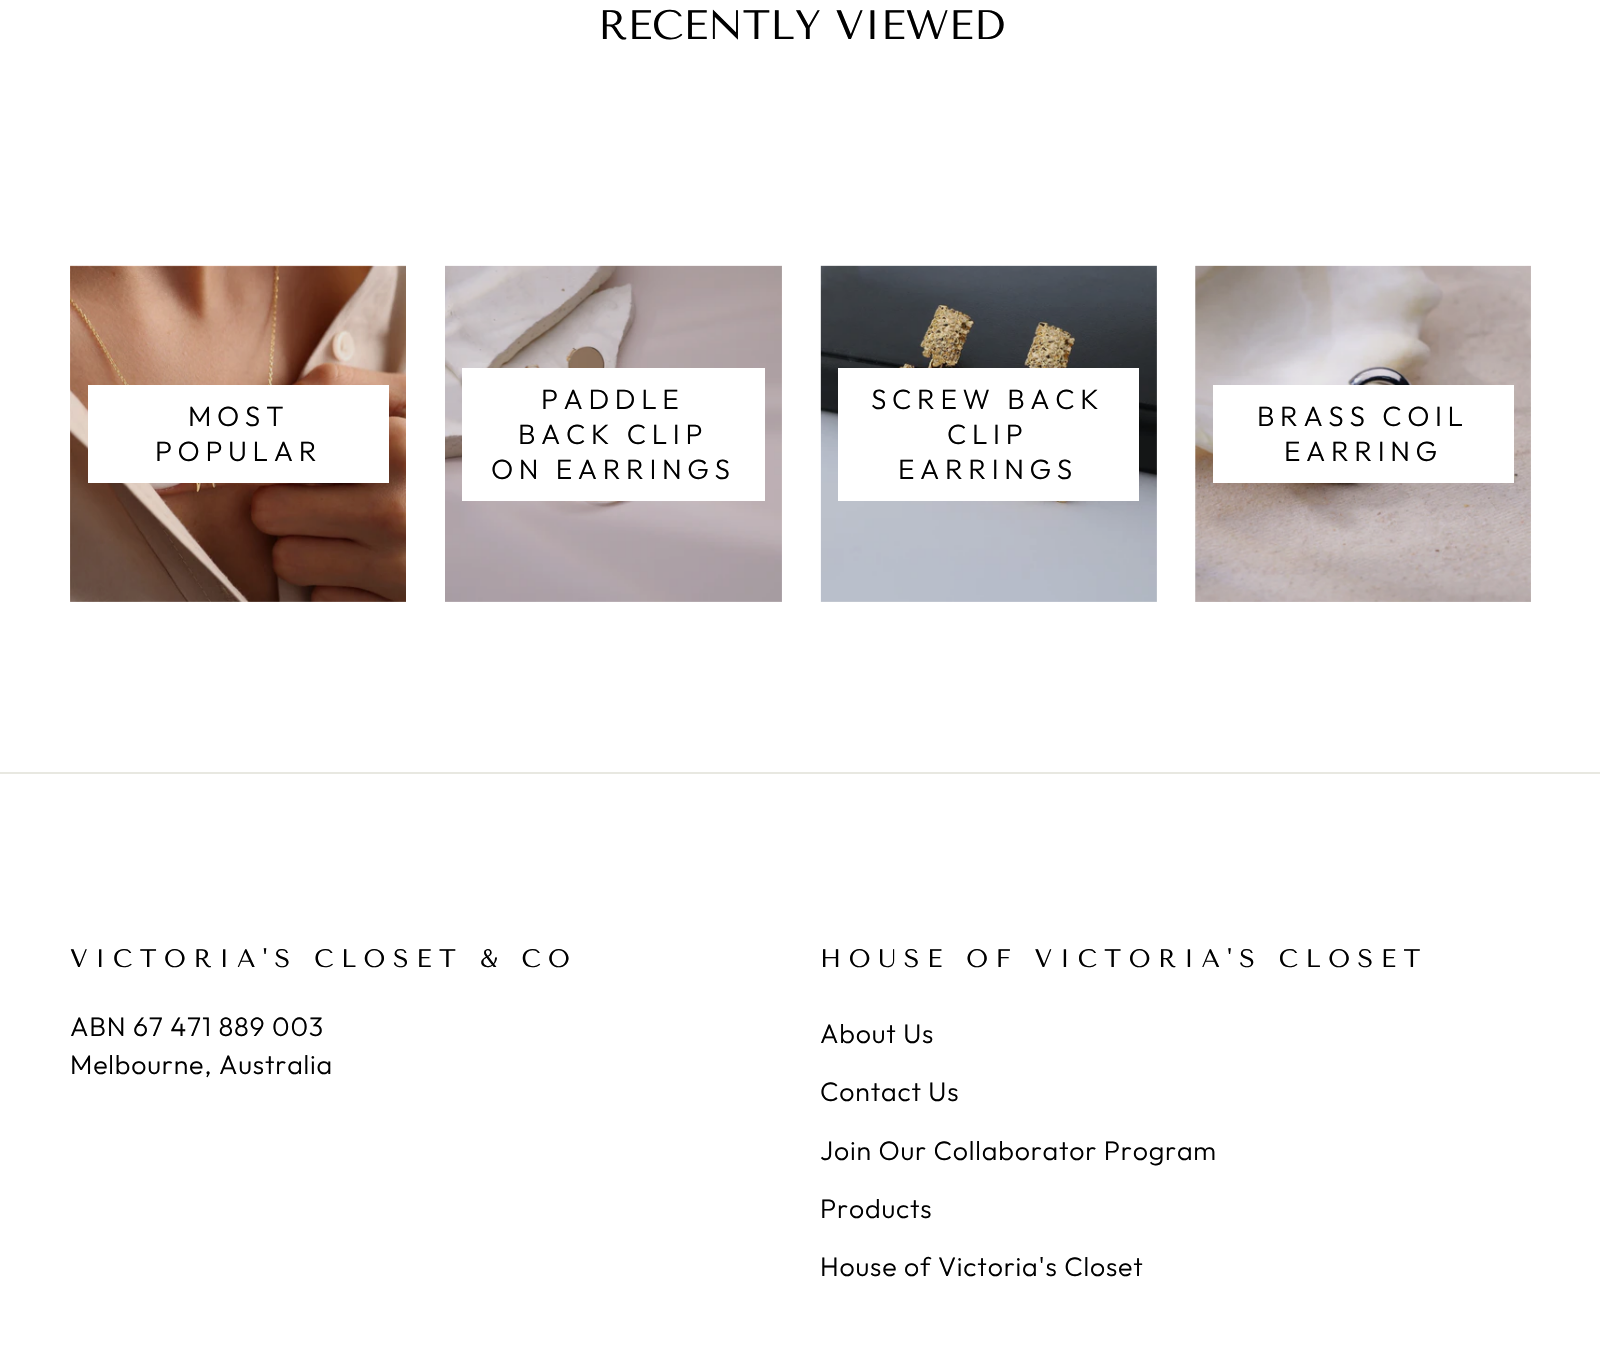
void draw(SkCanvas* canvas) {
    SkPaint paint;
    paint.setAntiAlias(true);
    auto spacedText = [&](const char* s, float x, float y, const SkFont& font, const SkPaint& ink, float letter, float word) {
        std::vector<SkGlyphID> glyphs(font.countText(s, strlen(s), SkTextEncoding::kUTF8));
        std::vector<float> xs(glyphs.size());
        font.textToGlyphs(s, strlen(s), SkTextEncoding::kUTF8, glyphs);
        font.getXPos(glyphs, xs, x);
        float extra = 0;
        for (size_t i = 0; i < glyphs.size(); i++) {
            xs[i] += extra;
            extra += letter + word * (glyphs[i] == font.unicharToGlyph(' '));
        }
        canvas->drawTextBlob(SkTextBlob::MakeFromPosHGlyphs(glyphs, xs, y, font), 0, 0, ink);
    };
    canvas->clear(0xFFFFFFFF);
    paint.setColor(0xFFE6E6E6);
    canvas->drawRect(SkRect::MakeXYWH(1195, 266, 336, 336), paint);
    SkFont font1(fontMgr->matchFamilyStyle("Tenor Sans", SkFontStyle::Normal()), 41);
    font1.setSubpixel(true);
    paint.setColor(0xFF000000);
    canvas->drawString("RECENTLY VIEWED", 598, 39, font1, paint);
    canvas->drawImageRect(SkImages::DeferredFromEncodedData(SkData::MakeFromFileName("img1.png")), SkRect::MakeXYWH(70, 265, 336, 337), SkSamplingOptions());
    paint.setColor(0xFFFFFFFF);
    canvas->drawRect(SkRect::MakeXYWH(88, 385, 301, 98), paint);
    SkFont font2(fontMgr->matchFamilyStyle("Outfit", SkFontStyle(300, SkFontStyle::kNormal_Width, SkFontStyle::kUpright_Slant)), 28);
    font2.setSubpixel(true);
    paint.setColor(0xFF000000);
    spacedText("MOST", 188, 426, font2, paint, 5.6f, 0);
    spacedText("POPULAR", 155, 461, font2, paint, 5.6f, 0);
    canvas->drawImageRect(SkImages::DeferredFromEncodedData(SkData::MakeFromFileName("img2.png")), SkRect::MakeXYWH(445, 265, 337, 337), SkSamplingOptions());
    paint.setColor(0xFFFFFFFF);
    canvas->drawRect(SkRect::MakeXYWH(462, 368, 303, 133), paint);
    paint.setColor(0xFF000000);
    spacedText("PADDLE", 541, 409, font2, paint, 5.6f, 0);
    spacedText("BACK CLIP", 518, 444, font2, paint, 5.6f, 0);
    spacedText("ON EARRINGS", 491, 479, font2, paint, 5.6f, 0);
    canvas->drawImageRect(SkImages::DeferredFromEncodedData(SkData::MakeFromFileName("img3.png")), SkRect::MakeXYWH(820, 265, 337, 337), SkSamplingOptions());
    paint.setColor(0xFFFFFFFF);
    canvas->drawRect(SkRect::MakeXYWH(838, 368, 301, 133), paint);
    paint.setColor(0xFF000000);
    spacedText("SCREW BACK", 871, 409, font2, paint, 5.6f, 0);
    spacedText("CLIP", 947, 444, font2, paint, 5.6f, 0);
    spacedText("EARRINGS", 898, 479, font2, paint, 5.6f, 0);
    canvas->drawImageRect(SkImages::DeferredFromEncodedData(SkData::MakeFromFileName("img4.png")), SkRect::MakeXYWH(1195, 265, 336, 337), SkSamplingOptions());
    paint.setColor(0xFFFFFFFF);
    canvas->drawRect(SkRect::MakeXYWH(1213, 385, 301, 98), paint);
    paint.setColor(0xFF000000);
    spacedText("BRASS COIL", 1257, 426, font2, paint, 5.6f, 0);
    spacedText("EARRING", 1284, 461, font2, paint, 5.6f, 0);
    paint.setColor(0xFFE8E8E1);
    canvas->drawRect(SkRect::MakeXYWH(0, 772, 1600, 2), paint);
    SkFont font3(fontMgr->matchFamilyStyle("Tenor Sans", SkFontStyle::Normal()), 25.2f);
    font3.setSubpixel(true);
    paint.setColor(0xFF000000);
    spacedText("VICTORIA'S CLOSET & CO", 70, 967, font3, paint, 7.55f, 0);
    SkFont font4(fontMgr->matchFamilyStyle("Outfit", SkFontStyle(300, SkFontStyle::kNormal_Width, SkFontStyle::kUpright_Slant)), 26.75f);
    font4.setSubpixel(true);
    spacedText("ABN 67 471 889 003", 70, 1036, font4, paint, 0.8f, 0);
    spacedText("Melbourne, Australia", 70, 1074, font4, paint, 0.8f, 0);
    spacedText("HOUSE OF VICTORIA'S CLOSET", 820, 967, font3, paint, 7.55f, 0);
    spacedText("About Us", 820, 1043, font4, paint, 0.8f, 0);
    spacedText("Contact Us", 820, 1101, font4, paint, 0.8f, 0);
    spacedText("Join Our Collaborator Program", 820, 1160, font4, paint, 0.8f, 0);
    spacedText("Products", 820, 1218, font4, paint, 0.8f, 0);
    spacedText("House of Victoria's Closet", 820, 1276, font4, paint, 0.8f, 0);
}
